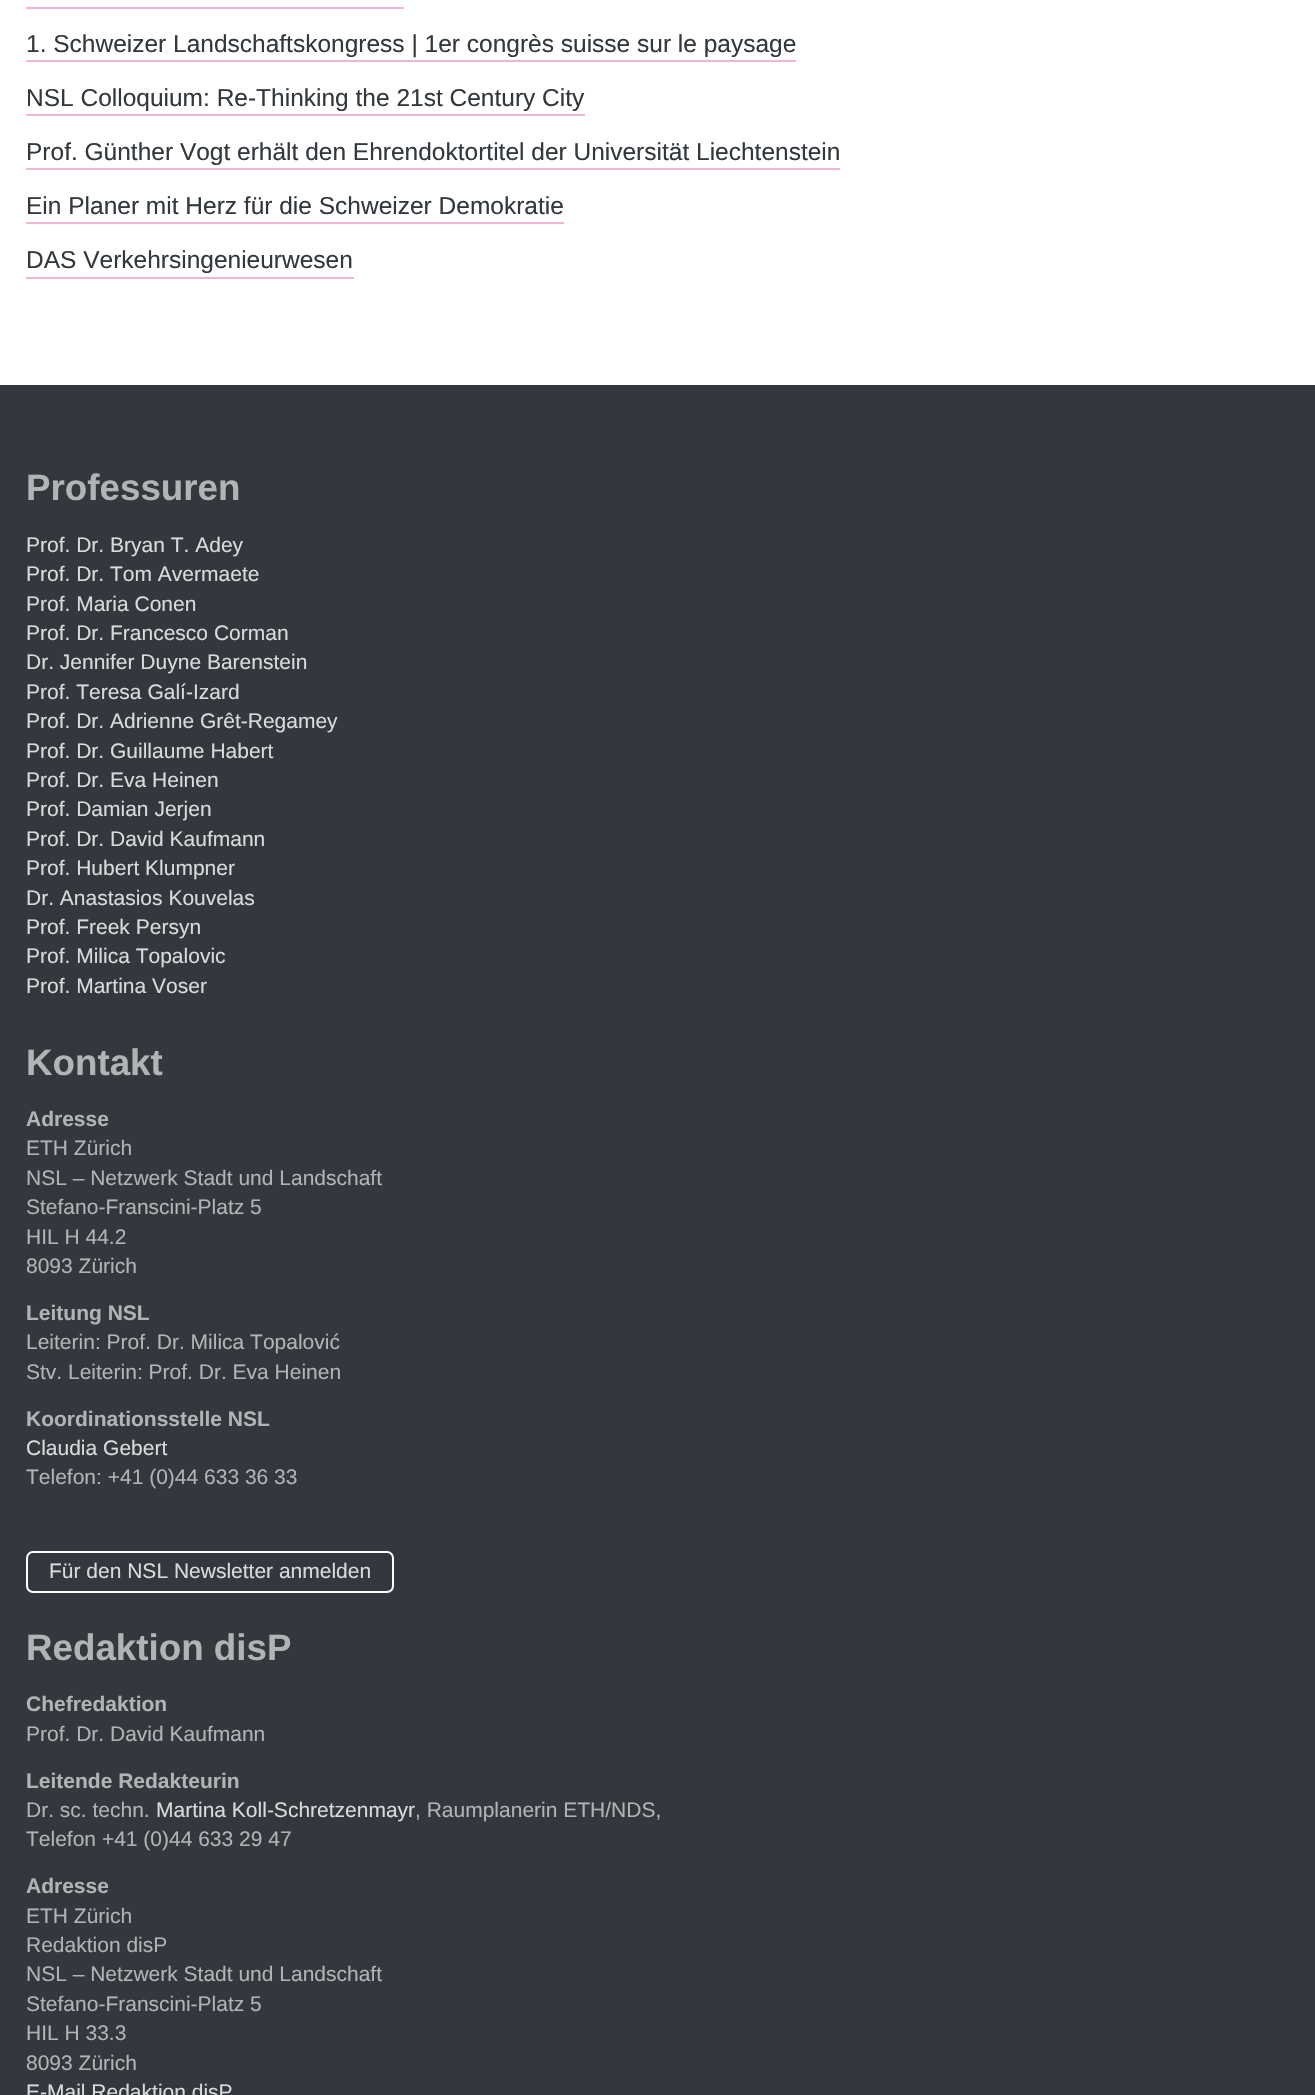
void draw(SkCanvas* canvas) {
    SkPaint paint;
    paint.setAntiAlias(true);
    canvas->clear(0xFFFFFFFF);
    paint.setColor(0xFFF3B2DA);
    canvas->drawRect(SkRect::MakeXYWH(26, 7, 378, 2), paint);
    SkFont font1(fontMgr->matchFamilyStyle("Liberation Sans", SkFontStyle::Normal()), 24.5f);
    font1.setSubpixel(true);
    paint.setColor(0xFF32383E);
    canvas->drawString("1. Schweizer Landschaftskongress | 1er congrès suisse sur le paysage", 26, 52, font1, paint);
    paint.setColor(0xFFF3B2DA);
    canvas->drawRect(SkRect::MakeXYWH(26, 60, 770, 2), paint);
    paint.setColor(0xFF32383E);
    canvas->drawString("NSL Colloquium: Re-Thinking the 21st Century City", 26, 106, font1, paint);
    paint.setColor(0xFFF3B2DA);
    canvas->drawRect(SkRect::MakeXYWH(26, 114, 559, 2), paint);
    paint.setColor(0xFF32383E);
    canvas->drawString("Prof. Günther Vogt erhält den Ehrendoktortitel der Universität Liechtenstein", 26, 160, font1, paint);
    paint.setColor(0xFFF3B2DA);
    canvas->drawRect(SkRect::MakeXYWH(26, 168, 814, 2), paint);
    paint.setColor(0xFF32383E);
    canvas->drawString("Ein Planer mit Herz für die Schweizer Demokratie", 26, 214, font1, paint);
    paint.setColor(0xFFF3B2DA);
    canvas->drawRect(SkRect::MakeXYWH(26, 222, 538, 2), paint);
    paint.setColor(0xFF32383E);
    canvas->drawString("DAS Verkehrsingenieurwesen", 26, 268, font1, paint);
    paint.setColor(0xFFF3B2DA);
    canvas->drawRect(SkRect::MakeXYWH(26, 277, 328, 2), paint);
    paint.setColor(0xFF32383E);
    canvas->drawRect(SkRect::MakeXYWH(0, 385, 1315, 1710), paint);
    SkFont font2(fontMgr->matchFamilyStyle("Liberation Sans", SkFontStyle::Bold()), 36.75f);
    font2.setSubpixel(true);
    paint.setColor(0xFFB2B3B4);
    canvas->drawString("Professuren", 26, 500, font2, paint);
    SkFont font3(fontMgr->matchFamilyStyle("Liberation Sans", SkFontStyle::Normal()), 21);
    font3.setSubpixel(true);
    paint.setColor(0xFFDADADA);
    canvas->drawString("Prof. Dr. Bryan T. Adey", 26, 552, font3, paint);
    canvas->drawString("Prof. Dr. Tom Avermaete", 26, 581, font3, paint);
    canvas->drawString("Prof. Maria Conen", 26, 611, font3, paint);
    canvas->drawString("Prof. Dr. Francesco Corman", 26, 640, font3, paint);
    canvas->drawString("Dr. Jennifer Duyne Barenstein", 26, 669, font3, paint);
    canvas->drawString("Prof. Teresa Galí-Izard", 26, 699, font3, paint);
    canvas->drawString("Prof. Dr. Adrienne Grêt-Regamey", 26, 728, font3, paint);
    canvas->drawString("Prof. Dr. Guillaume Habert", 26, 758, font3, paint);
    canvas->drawString("Prof. Dr. Eva Heinen", 26, 787, font3, paint);
    canvas->drawString("Prof. Damian Jerjen", 26, 816, font3, paint);
    canvas->drawString("Prof. Dr. David Kaufmann", 26, 846, font3, paint);
    canvas->drawString("Prof. Hubert Klumpner", 26, 875, font3, paint);
    canvas->drawString("Dr. Anastasios Kouvelas", 26, 905, font3, paint);
    canvas->drawString("Prof. Freek Persyn", 26, 934, font3, paint);
    canvas->drawString("Prof. Milica Topalovic", 26, 963, font3, paint);
    canvas->drawString("Prof. Martina Voser", 26, 993, font3, paint);
    paint.setColor(0xFFB2B3B4);
    canvas->drawString("Kontakt", 26, 1075, font2, paint);
    SkFont font4(fontMgr->matchFamilyStyle("Liberation Sans", SkFontStyle::Bold()), 21);
    font4.setSubpixel(true);
    canvas->drawString("Adresse", 26, 1126, font4, paint);
    canvas->drawString("ETH Zürich", 26, 1155, font3, paint);
    canvas->drawString("NSL – Netzwerk Stadt und Landschaft", 26, 1185, font3, paint);
    canvas->drawString("Stefano-Franscini-Platz 5", 26, 1214, font3, paint);
    canvas->drawString("HIL H 44.2", 26, 1244, font3, paint);
    canvas->drawString("8093 Zürich", 26, 1273, font3, paint);
    canvas->drawString("Leitung NSL", 26, 1320, font4, paint);
    canvas->drawString("Leiterin: Prof. Dr. Milica Topalović", 26, 1349, font3, paint);
    canvas->drawString("Stv. Leiterin: Prof. Dr. Eva Heinen", 26, 1379, font3, paint);
    canvas->drawString("Koordinationsstelle NSL", 26, 1426, font4, paint);
    paint.setColor(0xFFDADADA);
    canvas->drawString("Claudia Gebert", 26, 1455, font3, paint);
    paint.setColor(0xFFB2B3B4);
    canvas->drawString("Telefon: +41 (0)44 633 36 33", 26, 1484, font3, paint);
    paint.setStyle(SkPaint::kStroke_Style);
    paint.setStrokeWidth(2);
    paint.setColor(0xFFFFFFFF);
    canvas->drawRoundRect(SkRect::MakeXYWH(27, 1552, 366, 40), 6, 6, paint);
    paint.setStyle(SkPaint::kFill_Style);
    paint.setColor(0xFFDADADA);
    canvas->drawString("Für den NSL Newsletter anmelden", 49, 1578, font3, paint);
    paint.setColor(0xFFB2B3B4);
    canvas->drawString("Redaktion disP", 26, 1660, font2, paint);
    canvas->drawString("Chefredaktion", 26, 1711, font4, paint);
    canvas->drawString("Prof. Dr. David Kaufmann", 26, 1741, font3, paint);
    canvas->drawString("Leitende Redakteurin", 26, 1788, font4, paint);
    canvas->drawString("Dr. sc. techn.", 26, 1817, font3, paint);
    paint.setColor(0xFFDADADA);
    canvas->drawString("Martina Koll-Schretzenmayr", 156, 1817, font3, paint);
    paint.setColor(0xFFB2B3B4);
    canvas->drawString(", Raumplanerin ETH/NDS,", 415, 1817, font3, paint);
    canvas->drawString("Telefon +41 (0)44 633 29 47", 26, 1846, font3, paint);
    canvas->drawString("Adresse", 26, 1893, font4, paint);
    canvas->drawString("ETH Zürich", 26, 1923, font3, paint);
    canvas->drawString("Redaktion disP", 26, 1952, font3, paint);
    canvas->drawString("NSL – Netzwerk Stadt und Landschaft", 26, 1981, font3, paint);
    canvas->drawString("Stefano-Franscini-Platz 5", 26, 2011, font3, paint);
    canvas->drawString("HIL H 33.3", 26, 2040, font3, paint);
    canvas->drawString("8093 Zürich", 26, 2070, font3, paint);
    paint.setColor(0xFFDADADA);
    canvas->drawString("E-Mail Redaktion disP", 26, 2099, font3, paint);
}
